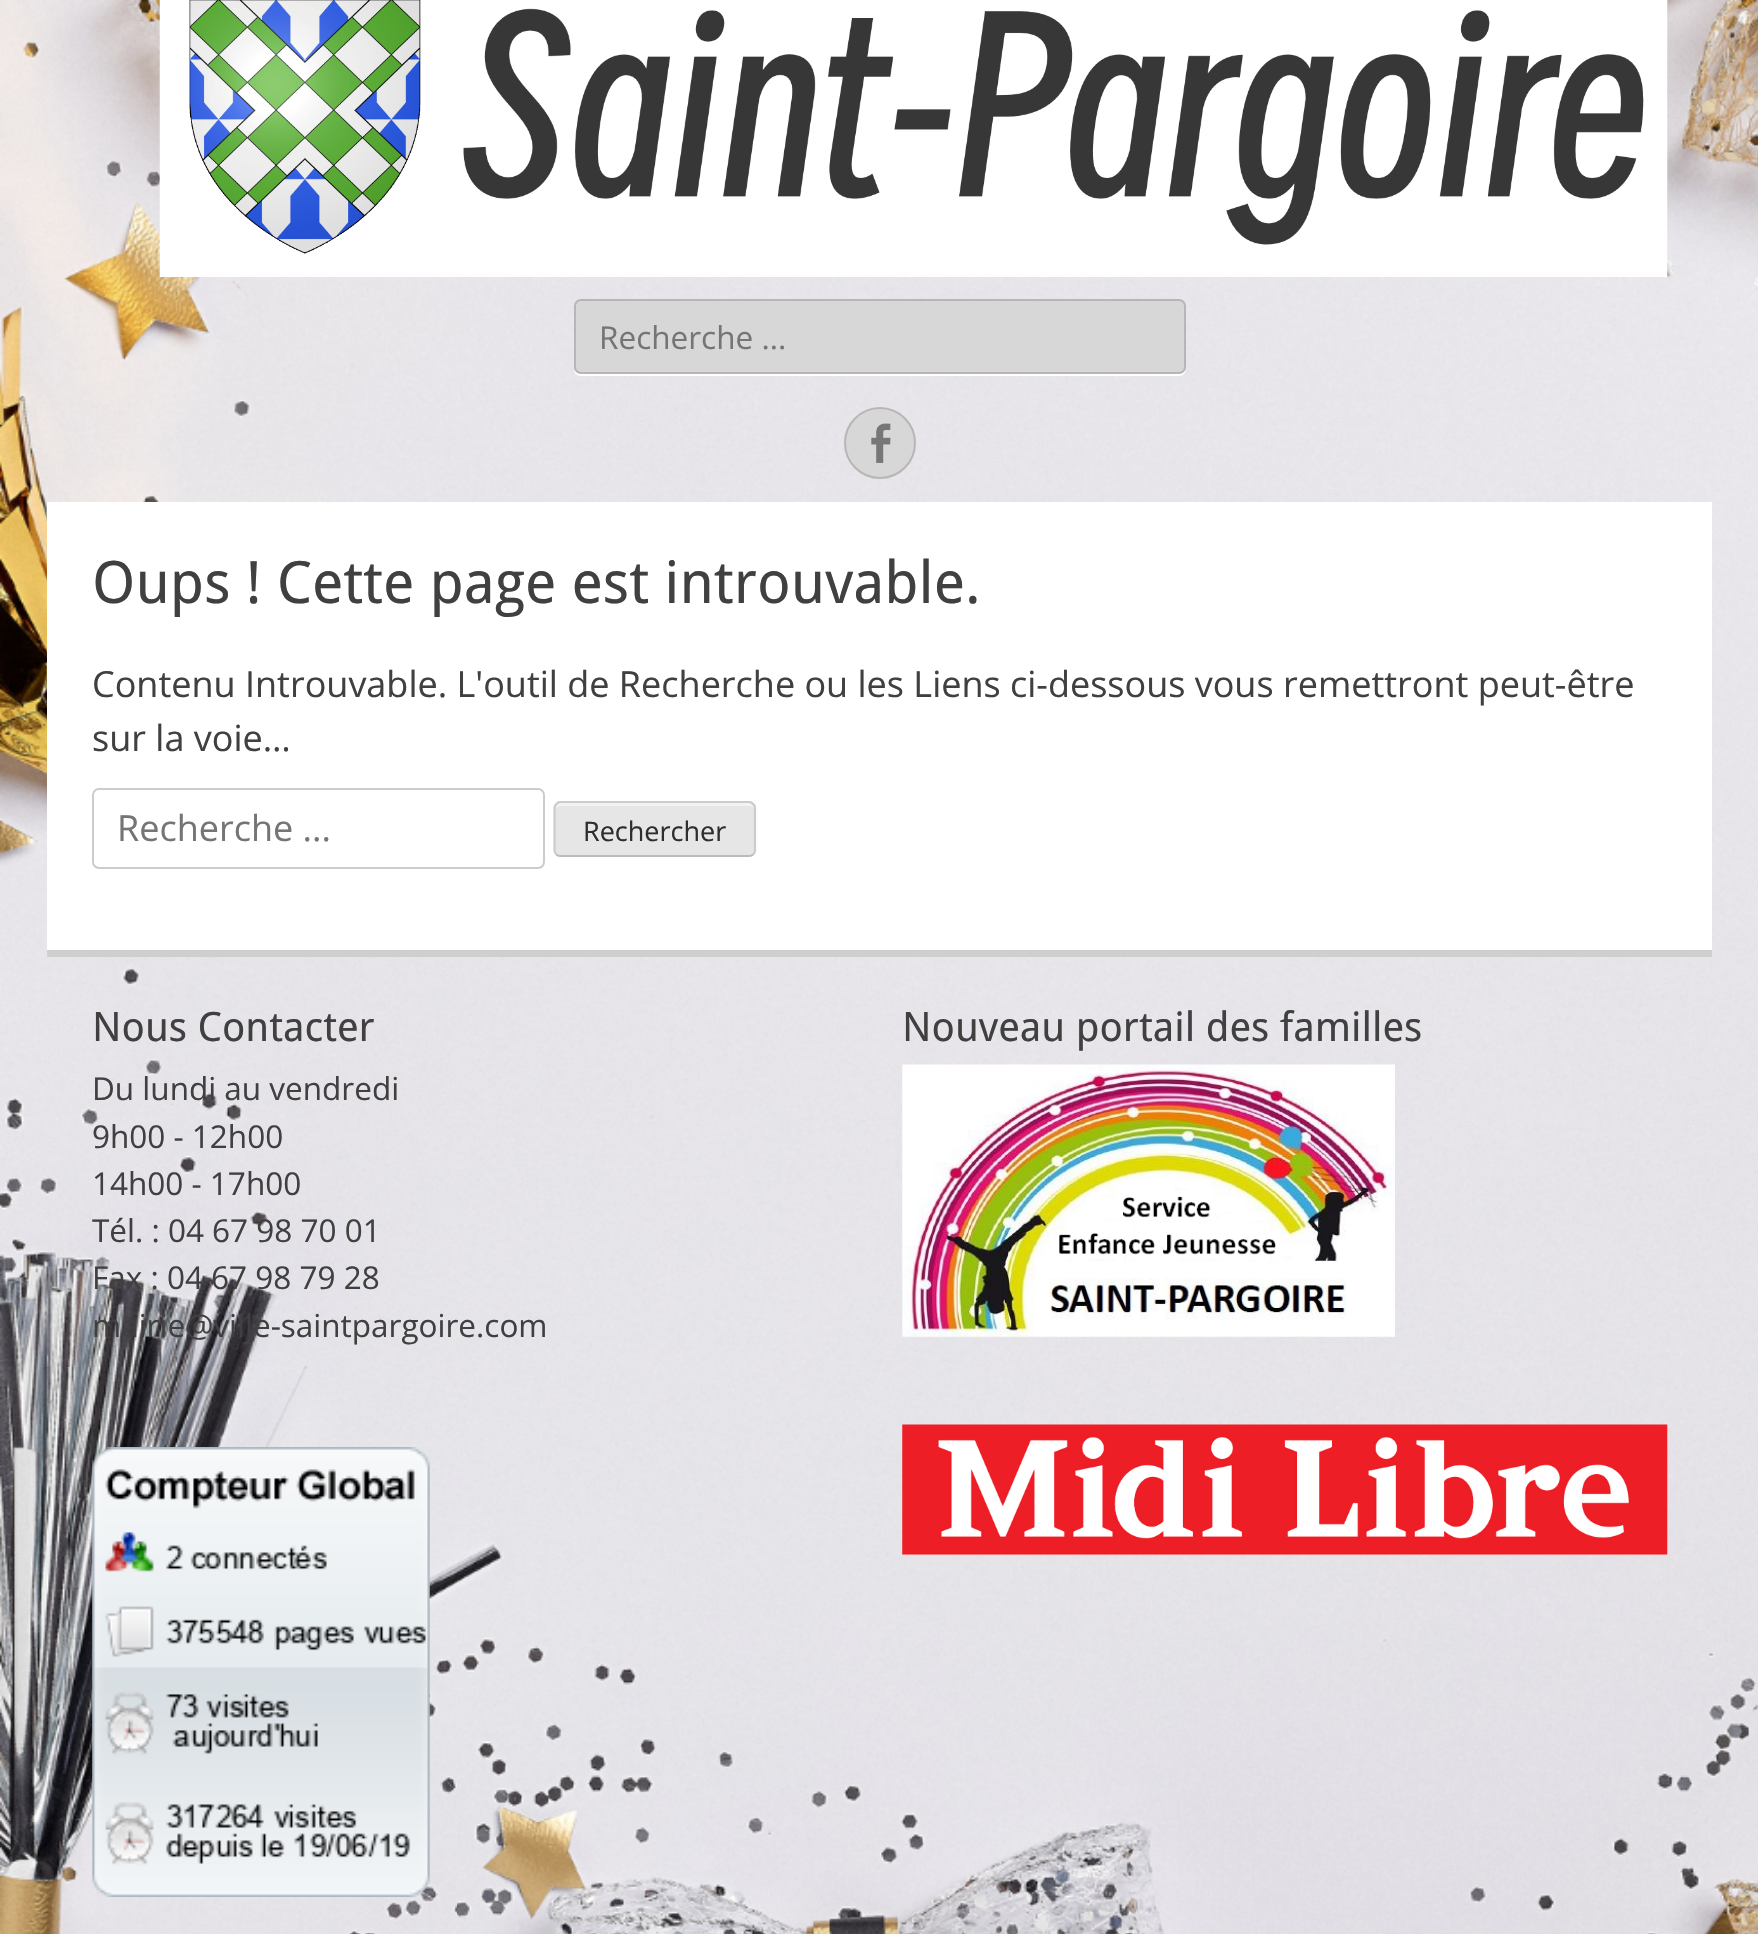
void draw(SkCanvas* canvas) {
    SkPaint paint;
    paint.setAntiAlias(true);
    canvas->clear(0xFFFFFFFF);
    canvas->drawImageRect(SkImages::DeferredFromEncodedData(SkData::MakeFromFileName("img1.png")), SkRect::MakeXYWH(0, 0, 1758, 1934), SkSamplingOptions());
    canvas->drawImageRect(SkImages::DeferredFromEncodedData(SkData::MakeFromFileName("img2.png")), SkRect::MakeXYWH(159, 0, 1509, 277), SkSamplingOptions());
    paint.setColor(0xFFFFFFFF);
    canvas->drawPath(SkPathBuilder().moveTo(574, 369).cubicTo(574, 373, 577, 376, 581, 376).lineTo(1179, 376).cubicTo(1183, 376, 1186, 373, 1186, 369).lineTo(1186, 307).lineTo(1186, 367).cubicTo(1186, 370, 1183, 374, 1179, 374).lineTo(580, 374).cubicTo(577, 374, 575, 371, 574, 369).close().detach(), paint);
    paint.setColor(0xFFD7D7D7);
    canvas->drawRoundRect(SkRect::MakeXYWH(575, 300, 610, 73), 6, 6, paint);
    paint.setStyle(SkPaint::kStroke_Style);
    paint.setStrokeWidth(2);
    paint.setColor(0xFFB6B6B6);
    canvas->drawRoundRect(SkRect::MakeXYWH(575, 300, 610, 73), 6, 6, paint);
    SkFont font1(fontMgr->matchFamilyStyle("Open Sans", SkFontStyle::Normal()), 31.5f);
    font1.setSubpixel(true);
    paint.setStyle(SkPaint::kFill_Style);
    paint.setColor(0xFF757575);
    canvas->drawString("Recherche ...", 599, 349, font1, paint);
    paint.setColor(0xFFD7D7D7);
    canvas->drawCircle(880, 443, 35, paint);
    paint.setStyle(SkPaint::kStroke_Style);
    paint.setColor(0xFFB6B6B6);
    canvas->drawCircle(880, 443, 35, paint);
    canvas->drawImageRect(SkImages::DeferredFromEncodedData(SkData::MakeFromFileName("img3.png")), SkRect::MakeXYWH(871, 423, 20, 40), SkSamplingOptions());
    paint.setStyle(SkPaint::kFill_Style);
    paint.setColor(0xFFFFFFFF);
    canvas->drawRect(SkRect::MakeXYWH(47, 502, 1665, 448), paint);
    SkFont font2(fontMgr->matchFamilyStyle("Droid Sans", SkFontStyle::Normal()), 58.5f);
    font2.setSubpixel(true);
    paint.setColor(0xFF404040);
    canvas->drawString("Oups ! Cette page est introuvable.", 92, 603, font2, paint);
    SkFont font3(fontMgr->matchFamilyStyle("Open Sans", SkFontStyle::Normal()), 36);
    font3.setSubpixel(true);
    canvas->drawString("Contenu Introuvable. L'outil de Recherche ou les Liens ci-dessous vous remettront peut-être", 92, 697, font3, paint);
    canvas->drawString("sur la voie…", 92, 751, font3, paint);
    paint.setStyle(SkPaint::kStroke_Style);
    paint.setColor(0xFFCCCCCC);
    canvas->drawRoundRect(SkRect::MakeXYWH(93, 789, 451, 79), 6, 6, paint);
    paint.setStyle(SkPaint::kFill_Style);
    paint.setColor(0xFF757575);
    canvas->drawString("Recherche ...", 117, 841, font3, paint);
    paint.setColor(0xFFE6E6E6);
    canvas->drawRoundRect(SkRect::MakeXYWH(554, 801, 202, 56), 7, 7, paint);
    paint.setColor(0xFFF3F3F3);
    canvas->drawPath(SkPathBuilder().moveTo(560, 806).lineTo(749, 806).cubicTo(752, 806, 754, 808, 754, 810).lineTo(754, 808).cubicTo(754, 805, 752, 803, 749, 803).lineTo(561, 803).cubicTo(558, 803, 556, 805, 556, 808).lineTo(556, 810).cubicTo(556, 808, 558, 806, 560, 806).close().detach(), paint);
    paint.setStyle(SkPaint::kStroke_Style);
    paint.setStrokeWidth(2.2f);
    paint.setColor(0xFFBBBBBB);
    canvas->drawPath(SkPathBuilder().moveTo(753, 854.5f).cubicTo(752, 855.5f, 750.5f, 856, 749, 856).lineTo(560, 856).cubicTo(559, 856, 557.5f, 855.5f, 556.5f, 854.5f).detach(), paint);
    paint.setColor(0xFFCCCCCC);
    canvas->drawPath(SkPathBuilder().moveTo(556.5f, 854.5f).cubicTo(555, 853.5f, 554.5f, 852, 554.5f, 850.5f).lineTo(554.5f, 808).cubicTo(554.5f, 806.5f, 555, 805, 556.5f, 804).cubicTo(557.5f, 802.5f, 559, 802, 560, 802).lineTo(749, 802).cubicTo(750.5f, 802, 752, 802.5f, 753, 804).cubicTo(754.5f, 805, 755, 806.5f, 755, 808).lineTo(755, 850.5f).cubicTo(755, 852, 754.5f, 853.5f, 753, 854.5f).detach(), paint);
    SkFont font4(fontMgr->matchFamilyStyle("Open Sans", SkFontStyle::Normal()), 27);
    font4.setSubpixel(true);
    paint.setStyle(SkPaint::kFill_Style);
    paint.setColor(0xFF2E2E2E);
    canvas->drawString("Rechercher", 583, 841, font4, paint);
    paint.setColor(0xFFCFCFCF);
    canvas->drawRect(SkRect::MakeXYWH(47, 950, 1665, 7), paint);
    SkFont font5(fontMgr->matchFamilyStyle("Droid Sans", SkFontStyle::Normal()), 40.5f);
    font5.setSubpixel(true);
    paint.setColor(0xFF404040);
    canvas->drawString("Nous Contacter", 92, 1041, font5, paint);
    canvas->drawString("Du lundi au vendredi", 92, 1100, font1, paint);
    canvas->drawString("9h00 - 12h00", 92, 1148, font1, paint);
    canvas->drawString("14h00 - 17h00", 92, 1195, font1, paint);
    canvas->drawString("Tél. : 04 67 98 70 01", 92, 1242, font1, paint);
    canvas->drawString("Fax : 04 67 98 79 28", 92, 1289, font1, paint);
    canvas->drawString("mairie@ville-saintpargoire.com", 92, 1337, font1, paint);
    canvas->drawImageRect(SkImages::DeferredFromEncodedData(SkData::MakeFromFileName("img4.png")), SkRect::MakeXYWH(92, 1447, 338, 450), SkSamplingOptions());
    canvas->drawString("Nouveau portail des familles", 902, 1041, font5, paint);
    canvas->drawImageRect(SkImages::DeferredFromEncodedData(SkData::MakeFromFileName("img5.png")), SkRect::MakeXYWH(902, 1064, 493, 273), SkSamplingOptions());
    canvas->drawImageRect(SkImages::DeferredFromEncodedData(SkData::MakeFromFileName("img6.png")), SkRect::MakeXYWH(902, 1424, 766, 131), SkSamplingOptions());
}
